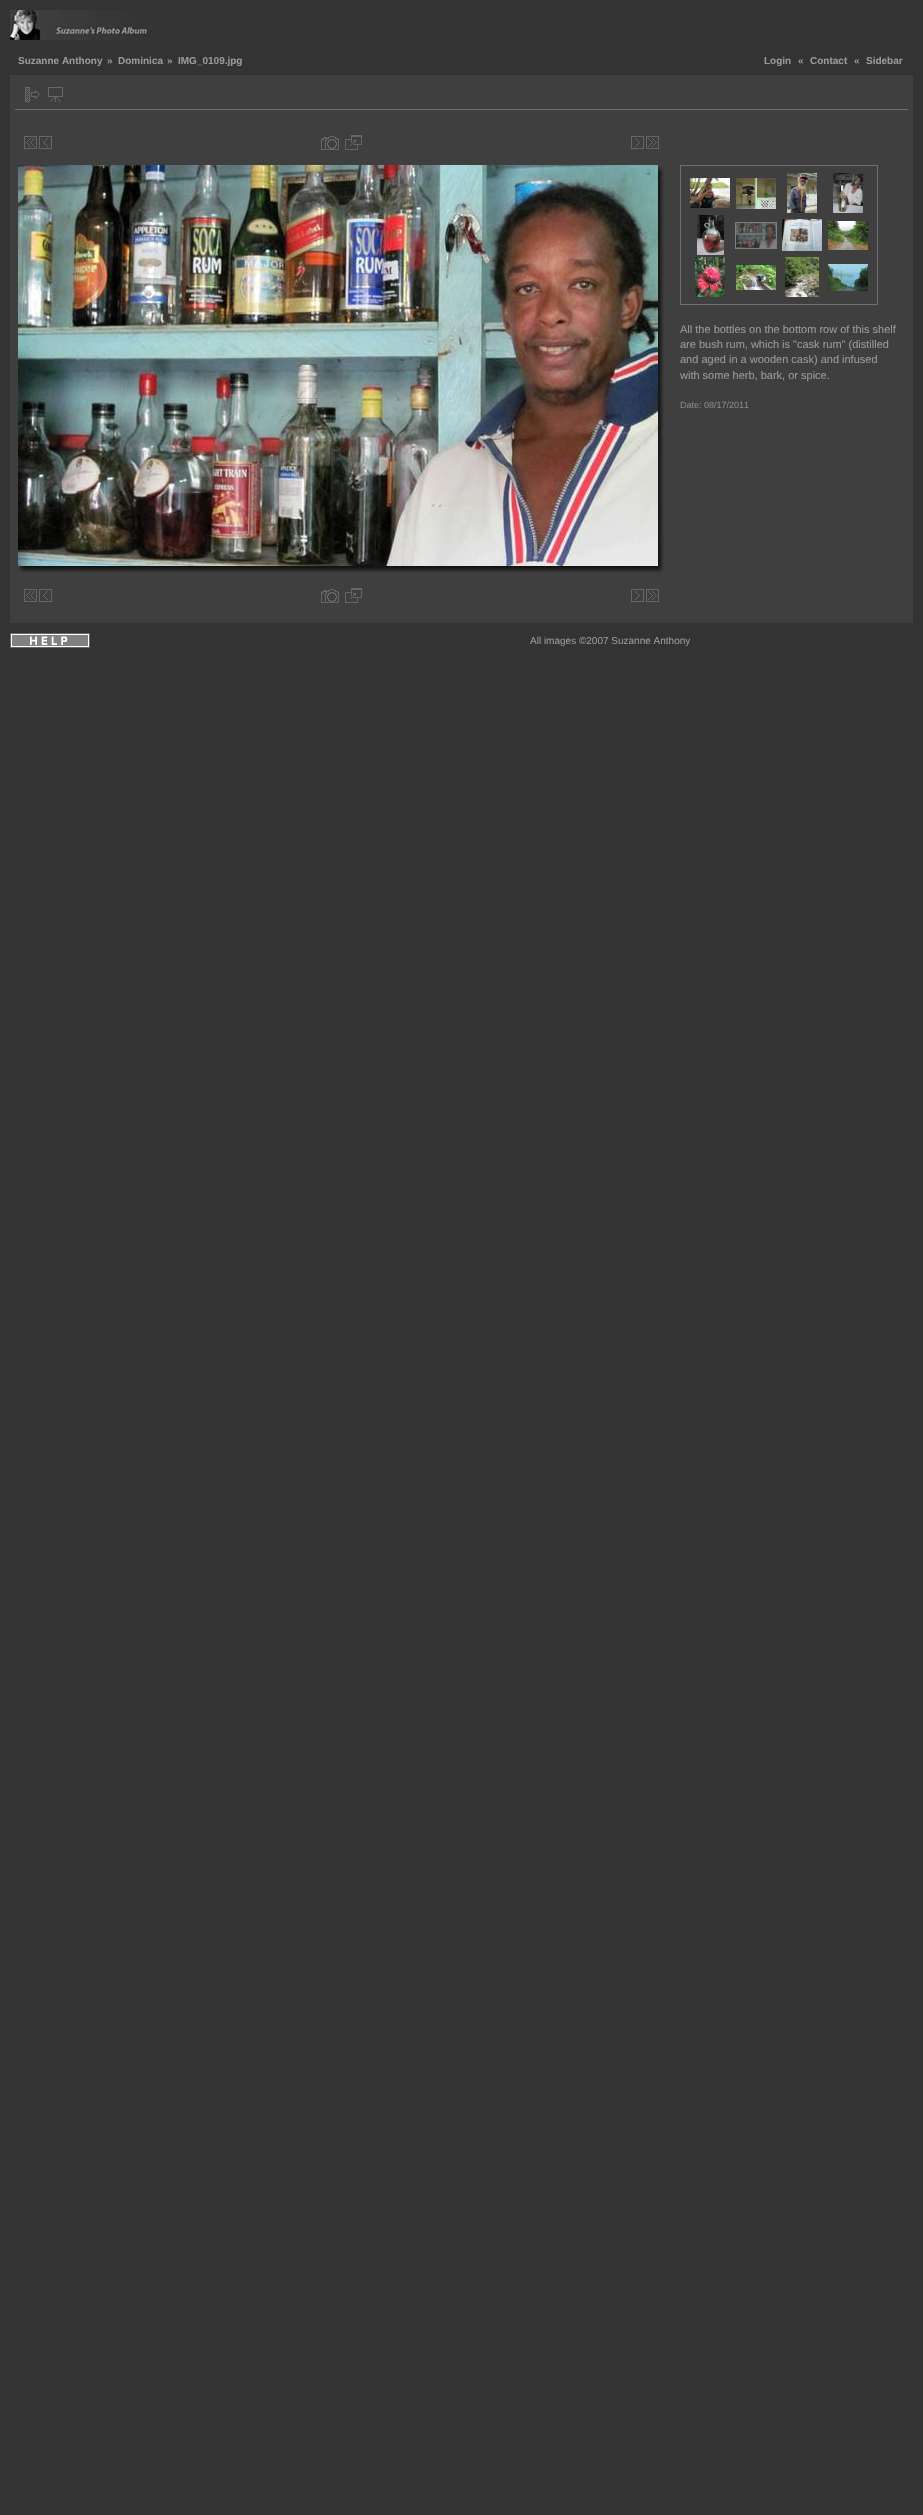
void draw(SkCanvas* canvas) {
    SkPaint paint;
    paint.setAntiAlias(true);
    canvas->clear(0xFF333333);
    canvas->drawImageRect(SkImages::DeferredFromEncodedData(SkData::MakeFromFileName("img1.png")), SkRect::MakeXYWH(10, 10, 142, 30), SkSamplingOptions());
    SkFont font1(fontMgr->matchFamilyStyle("Liberation Sans", SkFontStyle::Bold()), 10);
    font1.setSubpixel(true);
    paint.setColor(0xFF999999);
    canvas->drawString("Suzanne Anthony", 18, 64, font1, paint);
    canvas->drawString("»", 107, 64, font1, paint);
    canvas->drawString("Dominica", 118, 64, font1, paint);
    canvas->drawString("»", 167, 64, font1, paint);
    canvas->drawString("IMG_0109.jpg", 178, 64, font1, paint);
    canvas->drawString("Login", 764, 64, font1, paint);
    canvas->drawString("«", 798, 64, font1, paint);
    canvas->drawString("Contact", 810, 64, font1, paint);
    canvas->drawString("«", 854, 64, font1, paint);
    canvas->drawString("Sidebar", 866, 64, font1, paint);
    paint.setColor(0xFF3F3F3F);
    canvas->drawRect(SkRect::MakeXYWH(10, 75, 903, 548), paint);
    paint.setColor(0xFF6F6F6F);
    canvas->drawRect(SkRect::MakeXYWH(15, 109, 893, 1), paint);
    canvas->drawImageRect(SkImages::DeferredFromEncodedData(SkData::MakeFromFileName("img2.png")), SkRect::MakeXYWH(25, 87, 15, 15), SkSamplingOptions());
    canvas->drawImageRect(SkImages::DeferredFromEncodedData(SkData::MakeFromFileName("img3.png")), SkRect::MakeXYWH(48, 87, 15, 15), SkSamplingOptions());
    canvas->drawImageRect(SkImages::DeferredFromEncodedData(SkData::MakeFromFileName("img4.png")), SkRect::MakeXYWH(24, 136, 13, 13), SkSamplingOptions());
    canvas->drawImageRect(SkImages::DeferredFromEncodedData(SkData::MakeFromFileName("img5.png")), SkRect::MakeXYWH(39, 136, 13, 13), SkSamplingOptions());
    canvas->drawImageRect(SkImages::DeferredFromEncodedData(SkData::MakeFromFileName("img6.png")), SkRect::MakeXYWH(321, 136, 18, 14), SkSamplingOptions());
    canvas->drawImageRect(SkImages::DeferredFromEncodedData(SkData::MakeFromFileName("img7.png")), SkRect::MakeXYWH(345, 135, 17, 15), SkSamplingOptions());
    canvas->drawImageRect(SkImages::DeferredFromEncodedData(SkData::MakeFromFileName("img8.png")), SkRect::MakeXYWH(631, 136, 13, 13), SkSamplingOptions());
    canvas->drawImageRect(SkImages::DeferredFromEncodedData(SkData::MakeFromFileName("img9.png")), SkRect::MakeXYWH(646, 136, 13, 13), SkSamplingOptions());
    canvas->drawImageRect(SkImages::DeferredFromEncodedData(SkData::MakeFromFileName("img10.png")), SkRect::MakeXYWH(18, 165, 640, 401), SkSamplingOptions());
    canvas->drawImageRect(SkImages::DeferredFromEncodedData(SkData::MakeFromFileName("img11.png")), SkRect::MakeXYWH(658, 166, 6, 9), SkSamplingOptions());
    canvas->drawImageRect(SkImages::DeferredFromEncodedData(SkData::MakeFromFileName("img12.png")), SkRect::MakeXYWH(658, 175, 6, 391), SkSamplingOptions());
    canvas->drawImageRect(SkImages::DeferredFromEncodedData(SkData::MakeFromFileName("img13.png")), SkRect::MakeXYWH(18, 566, 9, 7), SkSamplingOptions());
    canvas->drawImageRect(SkImages::DeferredFromEncodedData(SkData::MakeFromFileName("img14.png")), SkRect::MakeXYWH(27, 566, 631, 7), SkSamplingOptions());
    canvas->drawImageRect(SkImages::DeferredFromEncodedData(SkData::MakeFromFileName("img15.png")), SkRect::MakeXYWH(658, 566, 6, 7), SkSamplingOptions());
    paint.setStyle(SkPaint::kStroke_Style);
    paint.setStrokeWidth(1);
    canvas->drawRect(SkRect::MakeXYWH(680.5f, 165.5f, 197, 139), paint);
    canvas->drawImageRect(SkImages::DeferredFromEncodedData(SkData::MakeFromFileName("img16.png")), SkRect::MakeXYWH(690, 178, 40, 30), SkSamplingOptions());
    canvas->drawImageRect(SkImages::DeferredFromEncodedData(SkData::MakeFromFileName("img17.png")), SkRect::MakeXYWH(736, 178, 40, 31), SkSamplingOptions());
    canvas->drawImageRect(SkImages::DeferredFromEncodedData(SkData::MakeFromFileName("img18.png")), SkRect::MakeXYWH(787, 173, 30, 40), SkSamplingOptions());
    canvas->drawImageRect(SkImages::DeferredFromEncodedData(SkData::MakeFromFileName("img19.png")), SkRect::MakeXYWH(833, 173, 30, 40), SkSamplingOptions());
    canvas->drawImageRect(SkImages::DeferredFromEncodedData(SkData::MakeFromFileName("img20.png")), SkRect::MakeXYWH(697, 215, 27, 40), SkSamplingOptions());
    paint.setColor(0xFF7E7E7E);
    canvas->drawRect(SkRect::MakeXYWH(735.5f, 222.5f, 41, 26), paint);
    canvas->drawImageRect(SkImages::DeferredFromEncodedData(SkData::MakeFromFileName("img21.png")), SkRect::MakeXYWH(736, 223, 40, 25), SkSamplingOptions());
    canvas->drawImageRect(SkImages::DeferredFromEncodedData(SkData::MakeFromFileName("img22.png")), SkRect::MakeXYWH(782, 219, 40, 32), SkSamplingOptions());
    canvas->drawImageRect(SkImages::DeferredFromEncodedData(SkData::MakeFromFileName("img23.png")), SkRect::MakeXYWH(828, 221, 40, 29), SkSamplingOptions());
    canvas->drawImageRect(SkImages::DeferredFromEncodedData(SkData::MakeFromFileName("img24.png")), SkRect::MakeXYWH(695, 257, 30, 40), SkSamplingOptions());
    canvas->drawImageRect(SkImages::DeferredFromEncodedData(SkData::MakeFromFileName("img25.png")), SkRect::MakeXYWH(736, 265, 40, 25), SkSamplingOptions());
    canvas->drawImageRect(SkImages::DeferredFromEncodedData(SkData::MakeFromFileName("img26.png")), SkRect::MakeXYWH(785, 257, 34, 40), SkSamplingOptions());
    canvas->drawImageRect(SkImages::DeferredFromEncodedData(SkData::MakeFromFileName("img27.png")), SkRect::MakeXYWH(828, 264, 40, 27), SkSamplingOptions());
    SkFont font2(fontMgr->matchFamilyStyle("Liberation Sans", SkFontStyle::Normal()), 11);
    font2.setSubpixel(true);
    paint.setStyle(SkPaint::kFill_Style);
    paint.setColor(0xFF999999);
    canvas->drawString("All the bottles on the bottom row of this shelf", 680, 333, font2, paint);
    canvas->drawString("are bush rum, which is \"cask rum\" (distilled", 680, 348, font2, paint);
    canvas->drawString("and aged in a wooden cask) and infused", 680, 363, font2, paint);
    canvas->drawString("with some herb, bark, or spice.", 680, 379, font2, paint);
    SkFont font3(fontMgr->matchFamilyStyle("Liberation Sans", SkFontStyle::Normal()), 9);
    font3.setSubpixel(true);
    paint.setColor(0xFF888888);
    canvas->drawString("Date: 08/17/2011", 680, 408, font3, paint);
    canvas->drawImageRect(SkImages::DeferredFromEncodedData(SkData::MakeFromFileName("img4.png")), SkRect::MakeXYWH(24, 589, 13, 13), SkSamplingOptions());
    canvas->drawImageRect(SkImages::DeferredFromEncodedData(SkData::MakeFromFileName("img5.png")), SkRect::MakeXYWH(39, 589, 13, 13), SkSamplingOptions());
    canvas->drawImageRect(SkImages::DeferredFromEncodedData(SkData::MakeFromFileName("img6.png")), SkRect::MakeXYWH(321, 589, 18, 14), SkSamplingOptions());
    canvas->drawImageRect(SkImages::DeferredFromEncodedData(SkData::MakeFromFileName("img7.png")), SkRect::MakeXYWH(345, 588, 17, 15), SkSamplingOptions());
    canvas->drawImageRect(SkImages::DeferredFromEncodedData(SkData::MakeFromFileName("img8.png")), SkRect::MakeXYWH(631, 589, 13, 13), SkSamplingOptions());
    canvas->drawImageRect(SkImages::DeferredFromEncodedData(SkData::MakeFromFileName("img9.png")), SkRect::MakeXYWH(646, 589, 13, 13), SkSamplingOptions());
    canvas->drawImageRect(SkImages::DeferredFromEncodedData(SkData::MakeFromFileName("img28.png")), SkRect::MakeXYWH(10, 633, 80, 15), SkSamplingOptions());
    SkFont font4(fontMgr->matchFamilyStyle("Liberation Sans", SkFontStyle::Normal()), 10);
    font4.setSubpixel(true);
    paint.setColor(0xFF999999);
    canvas->drawString("All images ©2007 Suzanne Anthony", 530, 644, font4, paint);
}
